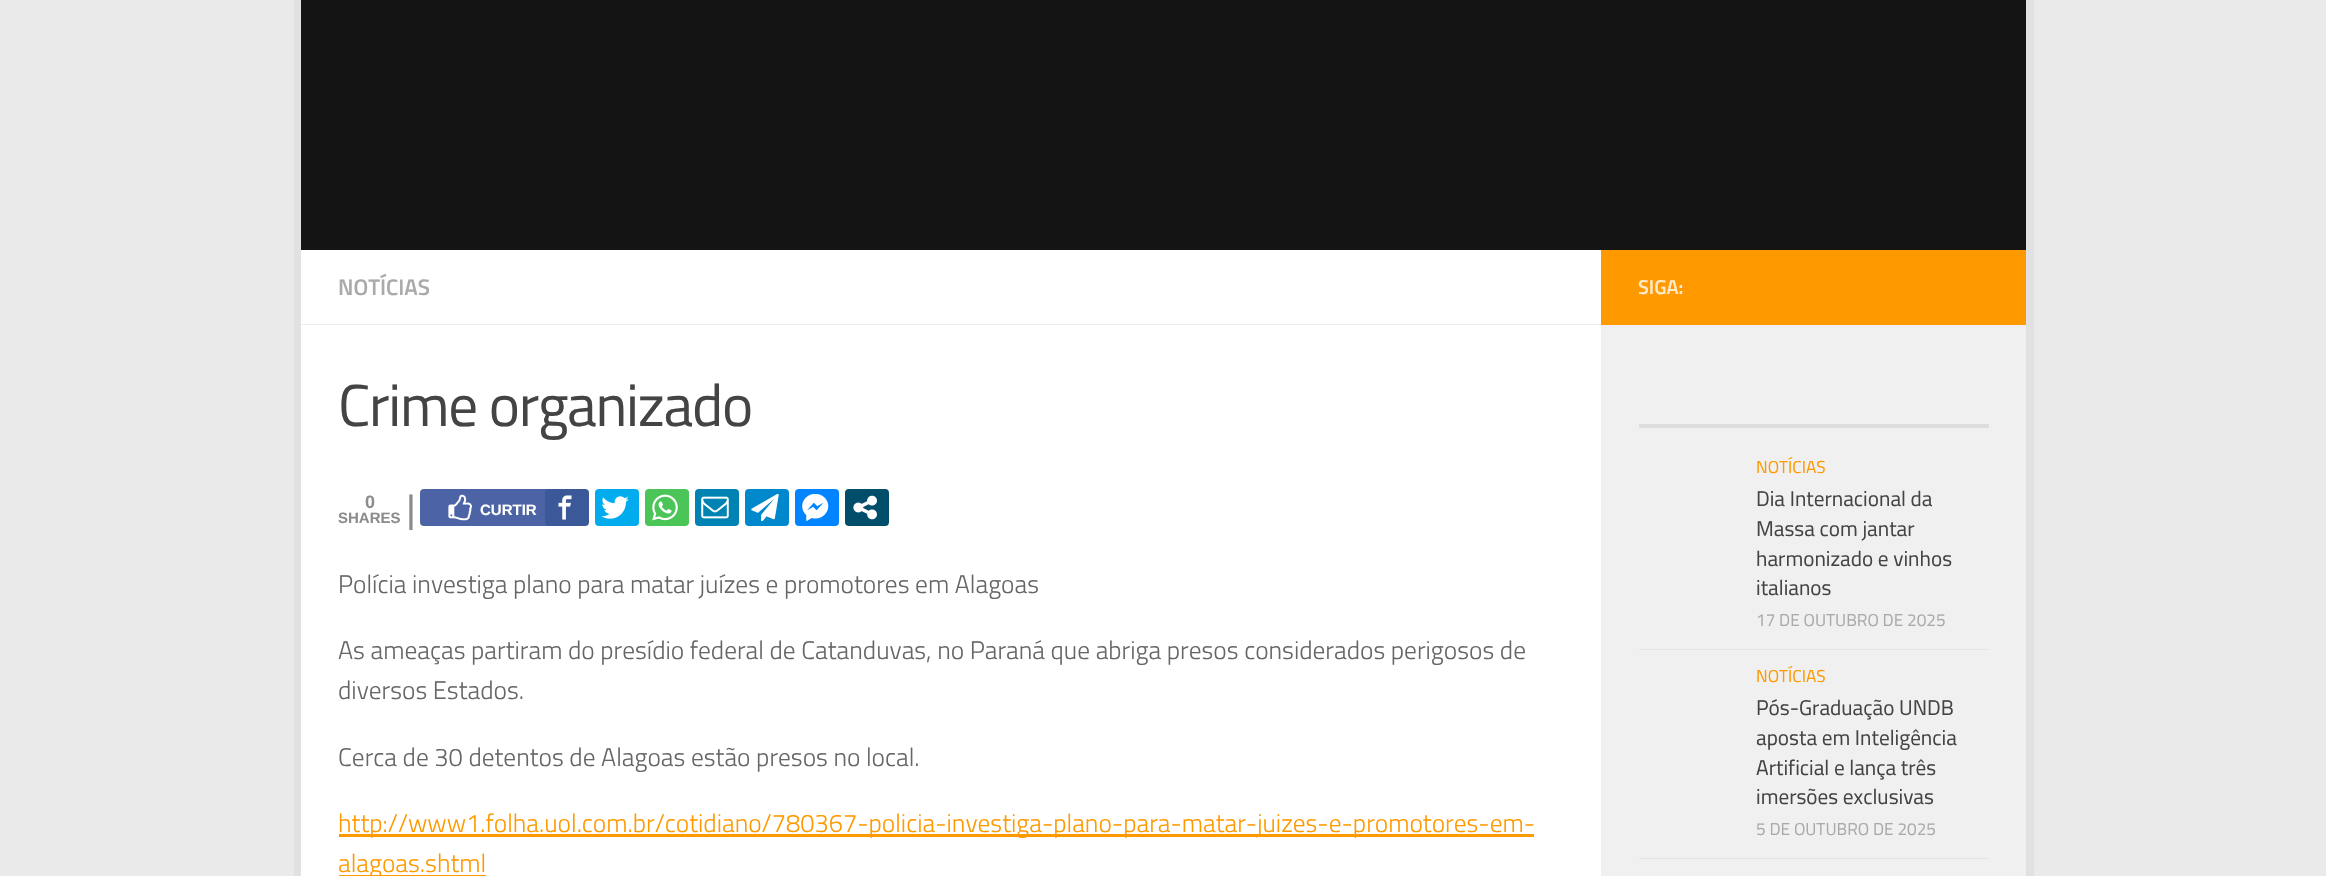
void draw(SkCanvas* canvas) {
    SkPaint paint;
    paint.setAntiAlias(true);
    auto spacedText = [&](const char* s, float x, float y, const SkFont& font, const SkPaint& ink, float letter, float word) {
        std::vector<SkGlyphID> glyphs(font.countText(s, strlen(s), SkTextEncoding::kUTF8));
        std::vector<float> xs(glyphs.size());
        font.textToGlyphs(s, strlen(s), SkTextEncoding::kUTF8, glyphs);
        font.getXPos(glyphs, xs, x);
        float extra = 0;
        for (size_t i = 0; i < glyphs.size(); i++) {
            xs[i] += extra;
            extra += letter + word * (glyphs[i] == font.unicharToGlyph(' '));
        }
        canvas->drawTextBlob(SkTextBlob::MakeFromPosHGlyphs(glyphs, xs, y, font), 0, 0, ink);
    };
    canvas->clear(0xFFEAEAEA);
    paint.setColor(0xFFE1E1E1);
    canvas->drawPath(SkPathBuilder().moveTo(294, 0).lineTo(294, 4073).lineTo(2019, 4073).lineTo(2019, 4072).lineTo(301, 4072).lineTo(301, 0).close().detach(), paint);
    canvas->drawPath(SkPathBuilder().moveTo(309, 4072).lineTo(309, 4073).lineTo(2034, 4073).lineTo(2034, 0).lineTo(2026, 0).lineTo(2026, 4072).close().detach(), paint);
    paint.setColor(0xFF141414);
    canvas->drawRect(SkRect::MakeXYWH(301, 0, 1725, 250), paint);
    paint.setColor(0xFFFFFFFF);
    canvas->drawRect(SkRect::MakeXYWH(301, 250, 1300, 626), paint);
    paint.setColor(0xFFEEEEEE);
    canvas->drawRect(SkRect::MakeXYWH(301, 324, 1300, 1), paint);
    SkFont font1(fontMgr->matchFamilyStyle("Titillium", SkFontStyle(600, SkFontStyle::kNormal_Width, SkFontStyle::kUpright_Slant)), 22.5f);
    font1.setSubpixel(true);
    paint.setColor(0xFFAAAAAA);
    canvas->drawString("NOTÍCIAS", 338, 295, font1, paint);
    SkFont font2(fontMgr->matchFamilyStyle("Titillium", SkFontStyle::Normal()), 59.25f);
    font2.setSubpixel(true);
    paint.setColor(0xFF444444);
    spacedText("Crime organizado", 338, 426, font2, paint, -1.25f, 0);
    SkFont font3(fontMgr->matchFamilyStyle("Liberation Sans", SkFontStyle::Bold()), 18);
    font3.setSubpixel(true);
    paint.setColor(0xFF8C8C8C);
    canvas->drawString("0", 365, 508, font3, paint);
    SkFont font4(fontMgr->matchFamilyStyle("Liberation Sans", SkFontStyle::Normal()), 38);
    font4.setSubpixel(true);
    canvas->drawString("|", 406, 522, font4, paint);
    SkFont font5(fontMgr->matchFamilyStyle("Liberation Sans", SkFontStyle::Bold()), 15);
    font5.setSubpixel(true);
    canvas->drawString("SHARES", 338, 523, font5, paint);
    paint.setColor(0xFF4C63A5);
    canvas->drawRoundRect(SkRect::MakeXYWH(420, 489, 150, 37), 4, 4, paint);
    canvas->drawImageRect(SkImages::DeferredFromEncodedData(SkData::MakeFromFileName("img1.png")), SkRect::MakeXYWH(448, 494, 24, 27), SkSamplingOptions());
    paint.setColor(0xFFFFFFFF);
    canvas->drawString("CURTIR", 480, 515, font5, paint);
    paint.setColor(0xFF3B5998);
    canvas->drawRoundRect(SkRect::MakeXYWH(545, 489, 44, 37), 4, 4, paint);
    canvas->drawImageRect(SkImages::DeferredFromEncodedData(SkData::MakeFromFileName("img2.png")), SkRect::MakeXYWH(558, 495, 14, 25), SkSamplingOptions());
    paint.setColor(0xFF00ACED);
    canvas->drawRoundRect(SkRect::MakeXYWH(595, 489, 44, 37), 4, 4, paint);
    canvas->drawImageRect(SkImages::DeferredFromEncodedData(SkData::MakeFromFileName("img3.png")), SkRect::MakeXYWH(601, 496, 28, 23), SkSamplingOptions());
    paint.setColor(0xFF4BC557);
    canvas->drawRoundRect(SkRect::MakeXYWH(645, 489, 44, 37), 4, 4, paint);
    canvas->drawImageRect(SkImages::DeferredFromEncodedData(SkData::MakeFromFileName("img4.png")), SkRect::MakeXYWH(652, 494, 26, 27), SkSamplingOptions());
    paint.setColor(0xFF0082B3);
    canvas->drawRoundRect(SkRect::MakeXYWH(695, 489, 44, 37), 4, 4, paint);
    canvas->drawImageRect(SkImages::DeferredFromEncodedData(SkData::MakeFromFileName("img5.png")), SkRect::MakeXYWH(701, 496, 28, 23), SkSamplingOptions());
    paint.setColor(0xFF0088CC);
    canvas->drawRoundRect(SkRect::MakeXYWH(745, 489, 44, 37), 4, 4, paint);
    canvas->drawImageRect(SkImages::DeferredFromEncodedData(SkData::MakeFromFileName("img6.png")), SkRect::MakeXYWH(751, 494, 28, 27), SkSamplingOptions());
    paint.setColor(0xFF0084FF);
    canvas->drawRoundRect(SkRect::MakeXYWH(795, 489, 44, 37), 4, 4, paint);
    canvas->drawImageRect(SkImages::DeferredFromEncodedData(SkData::MakeFromFileName("img7.png")), SkRect::MakeXYWH(802, 494, 27, 27), SkSamplingOptions());
    paint.setColor(0xFF014E6B);
    canvas->drawRoundRect(SkRect::MakeXYWH(845, 489, 44, 37), 4, 4, paint);
    canvas->drawImageRect(SkImages::DeferredFromEncodedData(SkData::MakeFromFileName("img8.png")), SkRect::MakeXYWH(853, 495, 24, 25), SkSamplingOptions());
    SkFont font6(fontMgr->matchFamilyStyle("Titillium", SkFontStyle(300, SkFontStyle::kNormal_Width, SkFontStyle::kUpright_Slant)), 25.45f);
    font6.setSubpixel(true);
    paint.setColor(0xFF666666);
    canvas->drawString("Polícia investiga plano para matar juízes e promotores em Alagoas", 338, 593, font6, paint);
    canvas->drawString("As ameaças partiram do presídio federal de Catanduvas, no Paraná que abriga presos considerados perigosos de", 338, 659, font6, paint);
    canvas->drawString("diversos Estados.", 338, 699, font6, paint);
    canvas->drawString("Cerca de 30 detentos de Alagoas estão presos no local.", 338, 766, font6, paint);
    paint.setColor(0xFFFF9900);
    canvas->drawRect(SkRect::MakeXYWH(339, 834, 1195, 3), paint);
    canvas->drawString("http://www1.folha.uol.com.br/cotidiano/780367-policia-investiga-plano-para-matar-juizes-e-promotores-em-", 338, 832, font6, paint);
    canvas->drawRect(SkRect::MakeXYWH(339, 875, 147, 1), paint);
    canvas->drawString("alagoas.shtml", 338, 872, font6, paint);
    canvas->drawRect(SkRect::MakeXYWH(1601, 250, 425, 75), paint);
    SkFont font7(fontMgr->matchFamilyStyle("Titillium", SkFontStyle(600, SkFontStyle::kNormal_Width, SkFontStyle::kUpright_Slant)), 20);
    font7.setSubpixel(true);
    paint.setColor(0xFFFFEBCC);
    canvas->drawString("SIGA:", 1638, 294, font7, paint);
    paint.setColor(0xFFF0F0F0);
    canvas->drawRect(SkRect::MakeXYWH(1601, 325, 425, 551), paint);
    paint.setColor(0xFFDDDDDD);
    canvas->drawRect(SkRect::MakeXYWH(1639, 424, 350, 4), paint);
    paint.setColor(0xFFE4E4E4);
    canvas->drawRect(SkRect::MakeXYWH(1639, 649, 350, 1), paint);
    SkFont font8(fontMgr->matchFamilyStyle("Titillium", SkFontStyle::Normal()), 17.25f);
    font8.setSubpixel(true);
    paint.setColor(0xFFFF9900);
    canvas->drawString("NOTÍCIAS", 1756, 473, font8, paint);
    SkFont font9(fontMgr->matchFamilyStyle("Titillium", SkFontStyle::Normal()), 21.25f);
    font9.setSubpixel(true);
    paint.setColor(0xFF444444);
    canvas->drawString("Dia Internacional da", 1756, 506, font9, paint);
    canvas->drawString("Massa com jantar", 1756, 536, font9, paint);
    canvas->drawString("harmonizado e vinhos", 1756, 566, font9, paint);
    canvas->drawString("italianos", 1756, 595, font9, paint);
    paint.setColor(0xFFAAAAAA);
    canvas->drawString("17 DE OUTUBRO DE 2025", 1756, 626, font8, paint);
    paint.setColor(0xFFE4E4E4);
    canvas->drawRect(SkRect::MakeXYWH(1639, 858, 350, 1), paint);
    paint.setColor(0xFFFF9900);
    canvas->drawString("NOTÍCIAS", 1756, 682, font8, paint);
    paint.setColor(0xFF444444);
    canvas->drawString("Pós-Graduação UNDB", 1756, 715, font9, paint);
    canvas->drawString("aposta em Inteligência", 1756, 745, font9, paint);
    canvas->drawString("Artificial e lança três", 1756, 775, font9, paint);
    canvas->drawString("imersões exclusivas", 1756, 804, font9, paint);
    paint.setColor(0xFFAAAAAA);
    canvas->drawString("5 DE OUTUBRO DE 2025", 1756, 835, font8, paint);
}
